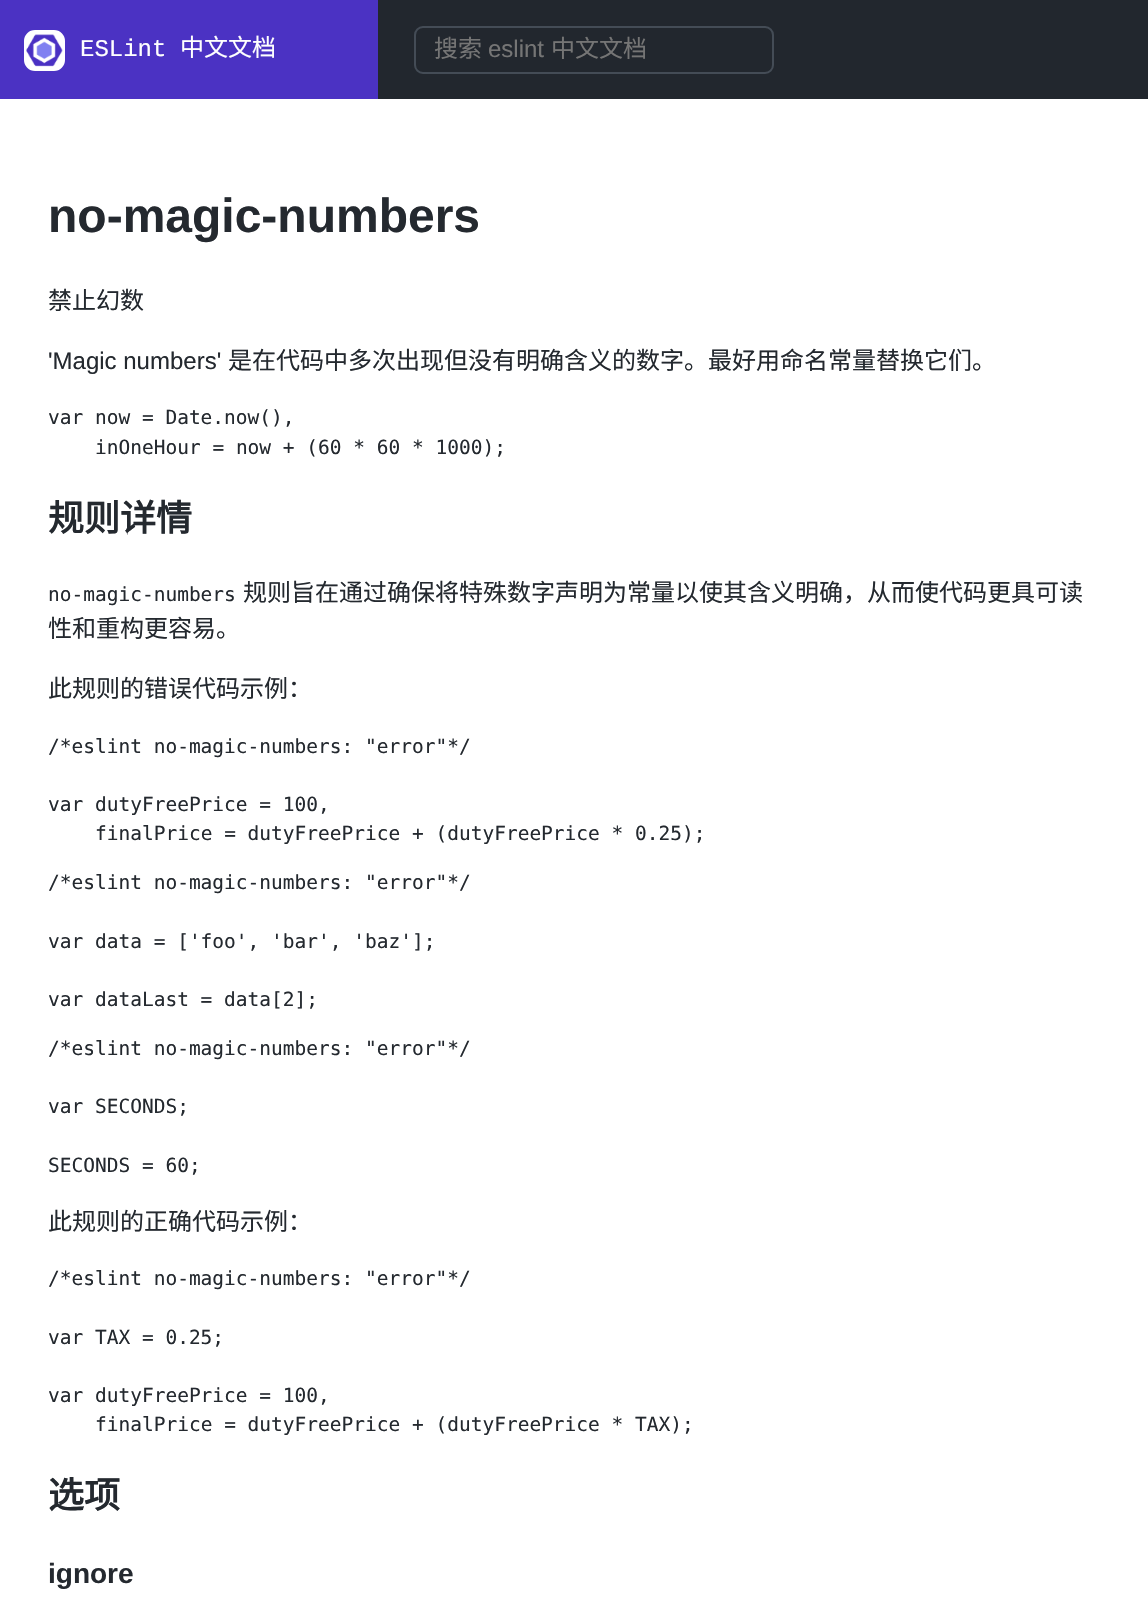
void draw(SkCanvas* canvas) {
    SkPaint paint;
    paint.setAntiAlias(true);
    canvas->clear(0xFFFFFFFF);
    paint.setColor(0xFF22272E);
    canvas->drawRect(SkRect::MakeXYWH(378, 0, 770, 99), paint);
    paint.setColor(0xFF4B32C3);
    canvas->drawRect(SkRect::MakeXYWH(0, 0, 378, 99), paint);
    paint.setColor(0xFFFFFFFF);
    canvas->drawRoundRect(SkRect::MakeXYWH(25, 31, 39, 39), 10, 10, paint);
    paint.setStyle(SkPaint::kStroke_Style);
    paint.setStrokeWidth(2);
    canvas->drawRoundRect(SkRect::MakeXYWH(25, 31, 39, 39), 10, 10, paint);
    canvas->drawImageRect(SkImages::DeferredFromEncodedData(SkData::MakeFromFileName("img1.png")), SkRect::MakeXYWH(26, 34, 37, 33), SkSamplingOptions());
    SkFont font1(fontMgr->matchFamilyStyle("Liberation Mono", SkFontStyle::Normal()), 24);
    font1.setSubpixel(true);
    paint.setStyle(SkPaint::kFill_Style);
    canvas->drawString("ESLint", 80, 56, font1, paint);
    SkFont font2(fontMgr->matchFamilyStyle("Noto Sans CJK SC", SkFontStyle::Normal()), 24);
    font2.setSubpixel(true);
    canvas->drawString("中文文档", 180, 56, font2, paint);
    paint.setStyle(SkPaint::kStroke_Style);
    paint.setColor(0xFF444C56);
    canvas->drawRoundRect(SkRect::MakeXYWH(415, 27, 358, 46), 8, 8, paint);
    paint.setStyle(SkPaint::kFill_Style);
    paint.setColor(0xFF757575);
    canvas->drawString("搜索", 434, 57, font2, paint);
    SkFont font3(fontMgr->matchFamilyStyle("Liberation Sans", SkFontStyle::Normal()), 24);
    font3.setSubpixel(true);
    canvas->drawString("eslint", 488, 57, font3, paint);
    canvas->drawString("中文文档", 551, 57, font2, paint);
    SkFont font4(fontMgr->matchFamilyStyle("Liberation Sans", SkFontStyle::Bold()), 48);
    font4.setSubpixel(true);
    paint.setColor(0xFF24292F);
    canvas->drawString("no-magic-numbers", 48, 232, font4, paint);
    canvas->drawString("禁止幻数", 48, 309, font2, paint);
    canvas->drawString("'Magic numbers'", 48, 369, font3, paint);
    canvas->drawString("是在代码中多次出现但没有明确含义的数字。最好用命名常量替换它们。", 228, 369, font2, paint);
    SkFont font5(fontMgr->matchFamilyStyle("DejaVu Sans Mono", SkFontStyle::Normal()), 19.5f);
    font5.setSubpixel(true);
    canvas->drawString("var now = Date.now(),", 48, 424, font5, paint);
    canvas->drawString("inOneHour = now + (60 * 60 * 1000);", 95, 454, font5, paint);
    SkFont font6(fontMgr->matchFamilyStyle("Noto Sans CJK SC", SkFontStyle::Bold()), 36);
    font6.setSubpixel(true);
    canvas->drawString("规则详情", 48, 531, font6, paint);
    canvas->drawString("no-magic-numbers", 48, 601, font5, paint);
    canvas->drawString("规则旨在通过确保将特殊数字声明为常量以使其含义明确，从而使代码更具可读", 243, 601, font2, paint);
    canvas->drawString("性和重构更容易。", 48, 637, font2, paint);
    canvas->drawString("此规则的错误代码示例：", 48, 697, font2, paint);
    canvas->drawString("/*eslint no-magic-numbers: \"error\"*/", 48, 753, font5, paint);
    canvas->drawString("var dutyFreePrice = 100,", 48, 811, font5, paint);
    canvas->drawString("finalPrice = dutyFreePrice + (dutyFreePrice * 0.25);", 95, 840, font5, paint);
    canvas->drawString("/*eslint no-magic-numbers: \"error\"*/", 48, 889, font5, paint);
    canvas->drawString("var data = ['foo', 'bar', 'baz'];", 48, 948, font5, paint);
    canvas->drawString("var dataLast = data[2];", 48, 1006, font5, paint);
    canvas->drawString("/*eslint no-magic-numbers: \"error\"*/", 48, 1055, font5, paint);
    canvas->drawString("var SECONDS;", 48, 1113, font5, paint);
    canvas->drawString("SECONDS = 60;", 48, 1172, font5, paint);
    canvas->drawString("此规则的正确代码示例：", 48, 1230, font2, paint);
    canvas->drawString("/*eslint no-magic-numbers: \"error\"*/", 48, 1285, font5, paint);
    canvas->drawString("var TAX = 0.25;", 48, 1344, font5, paint);
    canvas->drawString("var dutyFreePrice = 100,", 48, 1402, font5, paint);
    canvas->drawString("finalPrice = dutyFreePrice + (dutyFreePrice * TAX);", 95, 1431, font5, paint);
    canvas->drawString("选项", 48, 1508, font6, paint);
    SkFont font7(fontMgr->matchFamilyStyle("Liberation Sans", SkFontStyle::Bold()), 28);
    font7.setSubpixel(true);
    canvas->drawString("ignore", 48, 1583, font7, paint);
}
